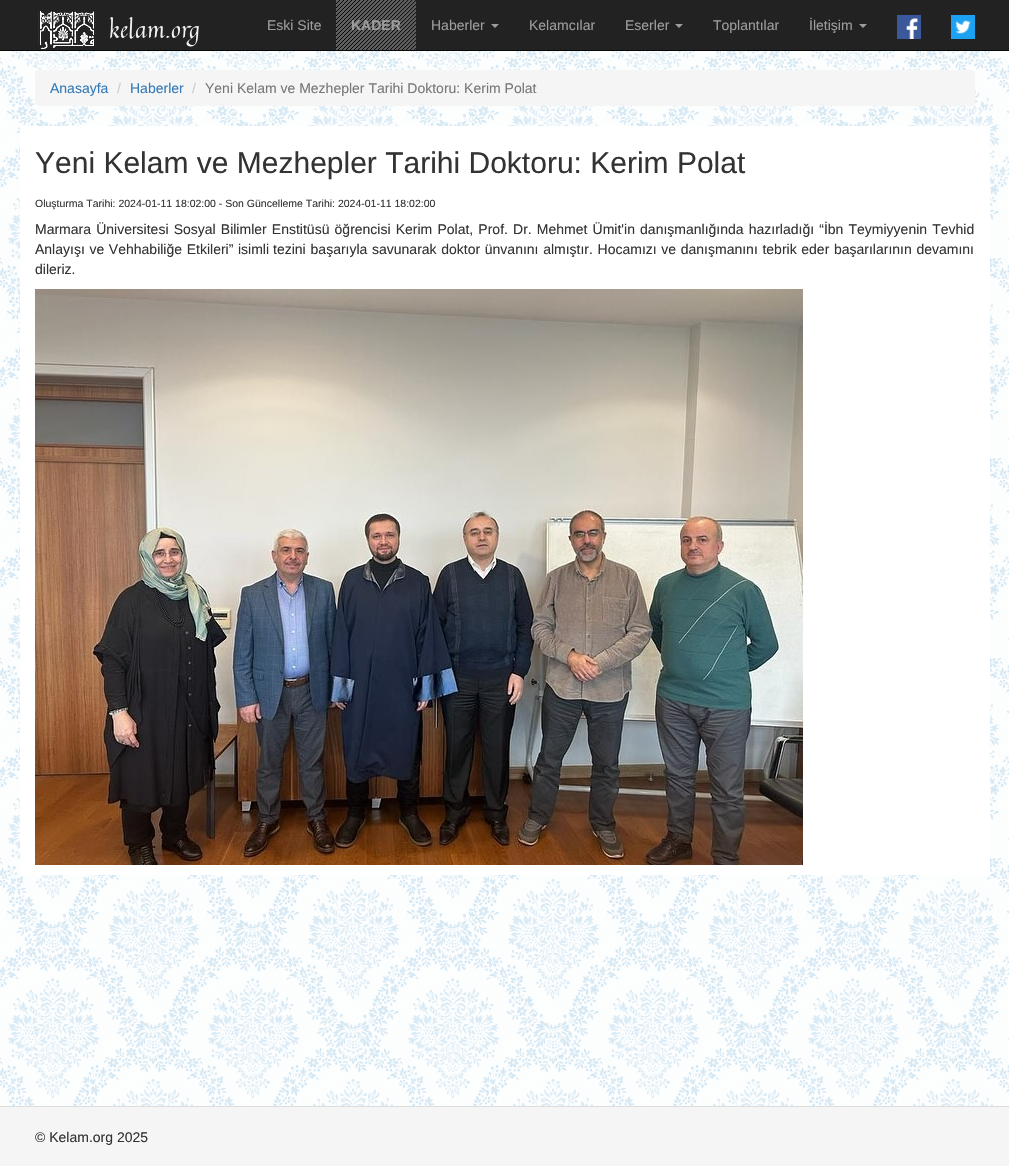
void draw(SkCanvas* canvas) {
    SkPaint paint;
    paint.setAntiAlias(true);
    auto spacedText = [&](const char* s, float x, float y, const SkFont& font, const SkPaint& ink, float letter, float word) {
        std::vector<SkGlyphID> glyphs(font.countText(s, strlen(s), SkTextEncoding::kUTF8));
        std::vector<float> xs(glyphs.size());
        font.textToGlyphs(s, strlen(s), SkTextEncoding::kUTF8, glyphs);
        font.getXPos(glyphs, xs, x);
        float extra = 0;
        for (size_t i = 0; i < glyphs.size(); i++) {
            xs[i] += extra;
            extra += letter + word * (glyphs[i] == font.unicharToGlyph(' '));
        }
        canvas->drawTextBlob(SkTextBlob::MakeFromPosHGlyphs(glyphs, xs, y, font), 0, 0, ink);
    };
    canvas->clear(0xFFFFFFFF);
    canvas->drawImageRect(SkImages::DeferredFromEncodedData(SkData::MakeFromFileName("img1.png")), SkRect::MakeXYWH(0, 51, 1009, 1055), SkSamplingOptions());
    paint.setColor(0xFF222222);
    canvas->drawRect(SkRect::MakeXYWH(0, 0, 1009, 50), paint);
    paint.setColor(0xFF080808);
    canvas->drawRect(SkRect::MakeXYWH(0, 50, 1009, 1), paint);
    canvas->drawImageRect(SkImages::DeferredFromEncodedData(SkData::MakeFromFileName("img2.png")), SkRect::MakeXYWH(38, 11, 161, 40), SkSamplingOptions());
    SkFont font1(fontMgr->matchFamilyStyle("Liberation Sans", SkFontStyle::Normal()), 14);
    font1.setSubpixel(true);
    paint.setColor(0xFF9D9D9D);
    canvas->drawString("Eski Site", 267, 30, font1, paint);
    canvas->drawImageRect(SkImages::DeferredFromEncodedData(SkData::MakeFromFileName("img3.png")), SkRect::MakeXYWH(336, 0, 80, 50), SkSamplingOptions());
    SkFont font2(fontMgr->matchFamilyStyle("Liberation Sans", SkFontStyle::Bold()), 14);
    font2.setSubpixel(true);
    canvas->drawString("KADER", 351, 30, font2, paint);
    canvas->drawString("Haberler", 431, 30, font1, paint);
    canvas->drawPath(SkPathBuilder().moveTo(491, 24).lineTo(499, 24).lineTo(495, 28).close().detach(), paint);
    canvas->drawString("Kelamcılar", 529, 30, font1, paint);
    canvas->drawString("Eserler", 625, 30, font1, paint);
    canvas->drawPath(SkPathBuilder().moveTo(675, 24).lineTo(683, 24).lineTo(679, 28).close().detach(), paint);
    canvas->drawString("Toplantılar", 713, 30, font1, paint);
    canvas->drawString("İletişim", 809, 30, font1, paint);
    canvas->drawPath(SkPathBuilder().moveTo(859, 24).lineTo(867, 24).lineTo(863, 28).close().detach(), paint);
    canvas->drawImageRect(SkImages::DeferredFromEncodedData(SkData::MakeFromFileName("img4.png")), SkRect::MakeXYWH(897, 15, 24, 24), SkSamplingOptions());
    canvas->drawImageRect(SkImages::DeferredFromEncodedData(SkData::MakeFromFileName("img5.png")), SkRect::MakeXYWH(951, 15, 24, 24), SkSamplingOptions());
    paint.setColor(0xFFF5F5F5);
    canvas->drawRoundRect(SkRect::MakeXYWH(35, 70, 940, 36), 4, 4, paint);
    paint.setColor(0xFF337AB7);
    canvas->drawString("Anasayfa", 50, 93, font1, paint);
    paint.setColor(0xFFCCCCCC);
    canvas->drawString("/", 117, 93, font1, paint);
    paint.setColor(0xFF337AB7);
    canvas->drawString("Haberler", 130, 93, font1, paint);
    paint.setColor(0xFFCCCCCC);
    canvas->drawString("/", 192, 93, font1, paint);
    paint.setColor(0xFF777777);
    canvas->drawString("Yeni Kelam ve Mezhepler Tarihi Doktoru: Kerim Polat", 205, 93, font1, paint);
    paint.setColor(0xFFFFFFFF);
    canvas->drawRect(SkRect::MakeXYWH(20, 126, 970, 749), paint);
    SkFont font3(fontMgr->matchFamilyStyle("Liberation Sans", SkFontStyle::Normal()), 30);
    font3.setSubpixel(true);
    paint.setColor(0xFF333333);
    canvas->drawString("Yeni Kelam ve Mezhepler Tarihi Doktoru: Kerim Polat", 35, 173, font3, paint);
    SkFont font4(fontMgr->matchFamilyStyle("Liberation Sans", SkFontStyle::Normal()), 10.5f);
    font4.setSubpixel(true);
    canvas->drawString("Oluşturma Tarihi: 2024-01-11 18:02:00 - Son Güncelleme Tarihi: 2024-01-11 18:02:00", 35, 207, font4, paint);
    spacedText("Marmara Üniversitesi Sosyal Bilimler Enstitüsü öğrencisi Kerim Polat, Prof. Dr. Mehmet Ümit'in danışmanlığında hazırladığı “İbn Teymiyyenin Tevhid", 35, 234, font1, paint, 0, 1.25f);
    spacedText("Anlayışı ve Vehhabiliğe Etkileri” isimli", 35, 254, font1, paint, 0, 0.75f);
    spacedText("tezini başarıyla", 273, 254, font1, paint, 0, 1);
    spacedText("savunarak doktor ünvanını almıştır. Hocamızı ve danışmanını tebrik eder başarılarının devamını", 372, 254, font1, paint, 0, 0.75f);
    canvas->drawString("dileriz.", 35, 274, font1, paint);
    canvas->drawImageRect(SkImages::DeferredFromEncodedData(SkData::MakeFromFileName("img6.png")), SkRect::MakeXYWH(35, 289, 768, 576), SkSamplingOptions());
    paint.setColor(0xFFF5F5F5);
    canvas->drawRect(SkRect::MakeXYWH(0, 1107, 1009, 59), paint);
    paint.setColor(0xFFDDDDDD);
    canvas->drawRect(SkRect::MakeXYWH(0, 1106, 1009, 1), paint);
    paint.setColor(0xFF333333);
    canvas->drawString("© Kelam.org 2025", 35, 1142, font1, paint);
}
